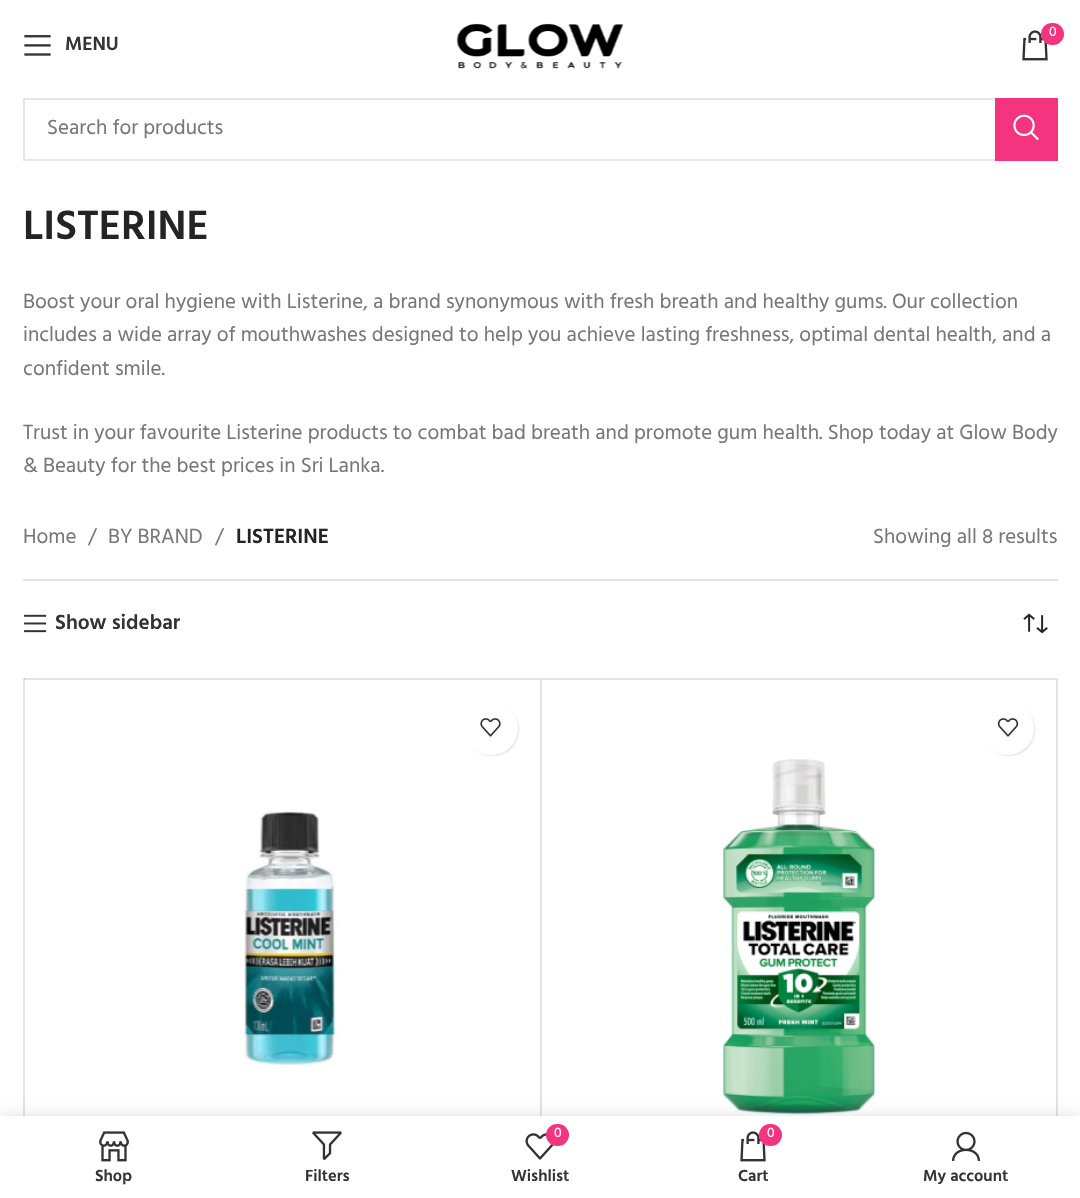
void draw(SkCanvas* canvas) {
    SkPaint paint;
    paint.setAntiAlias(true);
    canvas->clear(0xFFFFFFFF);
    canvas->drawImageRect(SkImages::DeferredFromEncodedData(SkData::MakeFromFileName("img1.png")), SkRect::MakeXYWH(456, 23, 168, 46), SkSamplingOptions());
    canvas->drawImageRect(SkImages::DeferredFromEncodedData(SkData::MakeFromFileName("img2.png")), SkRect::MakeXYWH(1022, 30, 26, 31), SkSamplingOptions());
    paint.setColor(0xFFF4347F);
    canvas->drawRoundRect(SkRect::MakeXYWH(1041, 23, 23, 22), 11, 11, paint);
    SkFont font1(fontMgr->matchFamilyStyle("Hind", SkFontStyle::Normal()), 14);
    font1.setSubpixel(true);
    paint.setColor(0xFFFFFFFF);
    canvas->drawString("0", 1049, 36, font1, paint);
    canvas->drawImageRect(SkImages::DeferredFromEncodedData(SkData::MakeFromFileName("img3.png")), SkRect::MakeXYWH(24, 35, 27, 21), SkSamplingOptions());
    SkFont font2(fontMgr->matchFamilyStyle("Hind", SkFontStyle(600, SkFontStyle::kNormal_Width, SkFontStyle::kUpright_Slant)), 19.5f);
    font2.setSubpixel(true);
    paint.setColor(0xFF333333);
    canvas->drawString("MENU", 65, 50, font2, paint);
    paint.setStyle(SkPaint::kStroke_Style);
    paint.setStrokeWidth(2);
    paint.setColor(0xFFE6E6E6);
    canvas->drawRect(SkRect::MakeXYWH(24, 99, 1033, 61), paint);
    SkFont font3(fontMgr->matchFamilyStyle("Hind", SkFontStyle::Normal()), 21);
    font3.setSubpixel(true);
    paint.setStyle(SkPaint::kFill_Style);
    paint.setColor(0xFF777777);
    canvas->drawString("Search for products", 47, 134, font3, paint);
    paint.setColor(0xFFF4347F);
    canvas->drawRect(SkRect::MakeXYWH(995, 98, 63, 63), paint);
    canvas->drawImageRect(SkImages::DeferredFromEncodedData(SkData::MakeFromFileName("img4.png")), SkRect::MakeXYWH(1013, 114, 26, 27), SkSamplingOptions());
    SkFont font4(fontMgr->matchFamilyStyle("Hind", SkFontStyle(600, SkFontStyle::kNormal_Width, SkFontStyle::kUpright_Slant)), 42);
    font4.setSubpixel(true);
    paint.setColor(0xFF242424);
    canvas->drawString("LISTERINE", 23, 239, font4, paint);
    paint.setColor(0xFF777777);
    canvas->drawString("Boost your oral hygiene with Listerine, a brand synonymous with fresh breath and healthy gums. Our collection", 23, 308, font3, paint);
    canvas->drawString("includes a wide array of mouthwashes designed to help you achieve lasting freshness, optimal dental health, and a", 23, 341, font3, paint);
    canvas->drawString("confident smile.", 23, 375, font3, paint);
    canvas->drawString("Trust in your favourite Listerine products to combat bad breath and promote gum health. Shop today at Glow Body", 23, 439, font3, paint);
    canvas->drawString("& Beauty for the best prices in Sri Lanka.", 23, 472, font3, paint);
    paint.setColor(0xFFE4E4E4);
    canvas->drawRect(SkRect::MakeXYWH(23, 579, 1035, 2), paint);
    paint.setColor(0xFF777777);
    canvas->drawString("Home", 23, 543, font3, paint);
    canvas->drawString("/", 88, 543, font3, paint);
    canvas->drawString("BY BRAND", 108, 543, font3, paint);
    canvas->drawString("/", 215, 543, font3, paint);
    SkFont font5(fontMgr->matchFamilyStyle("Hind", SkFontStyle(600, SkFontStyle::kNormal_Width, SkFontStyle::kUpright_Slant)), 21);
    font5.setSubpixel(true);
    paint.setColor(0xFF242424);
    canvas->drawString("LISTERINE", 236, 543, font5, paint);
    paint.setColor(0xFF777777);
    canvas->drawString("Showing all 8 results", 873, 543, font3, paint);
    canvas->drawImageRect(SkImages::DeferredFromEncodedData(SkData::MakeFromFileName("img5.png")), SkRect::MakeXYWH(24, 614, 23, 19), SkSamplingOptions());
    paint.setColor(0xFF333333);
    canvas->drawString("Show sidebar", 55, 629, font5, paint);
    canvas->drawImageRect(SkImages::DeferredFromEncodedData(SkData::MakeFromFileName("img6.png")), SkRect::MakeXYWH(1023, 613, 25, 21), SkSamplingOptions());
    paint.setColor(0xFFE4E4E4);
    canvas->drawRect(SkRect::MakeXYWH(23, 678, 2, 438), paint);
    paint.setColor(0x1C000000);
    canvas->drawPath(SkPathBuilder().moveTo(24, 678).lineTo(542, 678).lineTo(540, 680).lineTo(24, 680).close().detach(), paint);
    canvas->drawPath(SkPathBuilder().moveTo(542, 678).lineTo(542, 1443).lineTo(540, 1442).lineTo(540, 680).close().detach(), paint);
    paint.setColor(0x1A000000);
    paint.setMaskFilter(SkMaskFilter::MakeBlur(kNormal_SkBlurStyle, 1));
    canvas->drawRoundRect(SkRect::MakeXYWH(467, 704, 52, 52), 26, 26, paint);
    paint.setMaskFilter(nullptr);
    paint.setColor(0xFFFFFFFF);
    canvas->drawCircle(491.5f, 728.5f, 26.5f, paint);
    canvas->drawImageRect(SkImages::DeferredFromEncodedData(SkData::MakeFromFileName("img7.png")), SkRect::MakeXYWH(480, 718, 21, 19), SkSamplingOptions());
    canvas->drawImageRect(SkImages::DeferredFromEncodedData(SkData::MakeFromFileName("img8.png")), SkRect::MakeXYWH(243, 811, 95, 257), SkSamplingOptions());
    paint.setColor(0xFFE4E4E4);
    canvas->drawPath(SkPathBuilder().moveTo(542, 678).lineTo(1058, 678).lineTo(1056, 680).lineTo(542, 680).close().detach(), paint);
    paint.setColor(0x1C000000);
    canvas->drawPath(SkPathBuilder().moveTo(1058, 678).lineTo(1058, 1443).lineTo(1056, 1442).lineTo(1056, 680).close().detach(), paint);
    paint.setColor(0x1A000000);
    paint.setMaskFilter(SkMaskFilter::MakeBlur(kNormal_SkBlurStyle, 1));
    canvas->drawRoundRect(SkRect::MakeXYWH(983, 704, 52, 52), 26, 26, paint);
    paint.setMaskFilter(nullptr);
    paint.setColor(0xFFFFFFFF);
    canvas->drawCircle(1007.5f, 728.5f, 26.5f, paint);
    canvas->drawImageRect(SkImages::DeferredFromEncodedData(SkData::MakeFromFileName("img9.png")), SkRect::MakeXYWH(997, 718, 22, 19), SkSamplingOptions());
    canvas->drawImageRect(SkImages::DeferredFromEncodedData(SkData::MakeFromFileName("img10.png")), SkRect::MakeXYWH(722, 759, 154, 356), SkSamplingOptions());
    paint.setColor(0x1F000000);
    paint.setMaskFilter(SkMaskFilter::MakeBlur(kNormal_SkBlurStyle, 7));
    canvas->drawRect(SkRect::MakeXYWH(0, 1116, 1080, 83), paint);
    paint.setMaskFilter(nullptr);
    paint.setColor(0xFFFFFFFF);
    canvas->drawRect(SkRect::MakeXYWH(0, 1116, 1080, 82), paint);
    canvas->drawImageRect(SkImages::DeferredFromEncodedData(SkData::MakeFromFileName("img11.png")), SkRect::MakeXYWH(99, 1131, 30, 31), SkSamplingOptions());
    SkFont font6(fontMgr->matchFamilyStyle("Hind", SkFontStyle(600, SkFontStyle::kNormal_Width, SkFontStyle::kUpright_Slant)), 16.5f);
    font6.setSubpixel(true);
    paint.setColor(0xFF333333);
    canvas->drawString("Shop", 95, 1181, font6, paint);
    canvas->drawImageRect(SkImages::DeferredFromEncodedData(SkData::MakeFromFileName("img12.png")), SkRect::MakeXYWH(312, 1131, 30, 29), SkSamplingOptions());
    canvas->drawString("Filters", 305, 1181, font6, paint);
    canvas->drawImageRect(SkImages::DeferredFromEncodedData(SkData::MakeFromFileName("img13.png")), SkRect::MakeXYWH(525, 1133, 29, 27), SkSamplingOptions());
    paint.setColor(0xFFF4347F);
    canvas->drawRoundRect(SkRect::MakeXYWH(546, 1124, 23, 22), 11, 11, paint);
    paint.setColor(0xFFFFFFFF);
    canvas->drawString("0", 554, 1137, font1, paint);
    paint.setColor(0xFF333333);
    canvas->drawString("Wishlist", 511, 1181, font6, paint);
    canvas->drawImageRect(SkImages::DeferredFromEncodedData(SkData::MakeFromFileName("img2.png")), SkRect::MakeXYWH(740, 1131, 26, 31), SkSamplingOptions());
    paint.setColor(0xFFF4347F);
    canvas->drawRoundRect(SkRect::MakeXYWH(759, 1124, 23, 22), 11, 11, paint);
    paint.setColor(0xFFFFFFFF);
    canvas->drawString("0", 767, 1137, font1, paint);
    paint.setColor(0xFF333333);
    canvas->drawString("Cart", 738, 1181, font6, paint);
    canvas->drawImageRect(SkImages::DeferredFromEncodedData(SkData::MakeFromFileName("img14.png")), SkRect::MakeXYWH(952, 1131, 28, 30), SkSamplingOptions());
    canvas->drawString("My account", 923, 1181, font6, paint);
}
